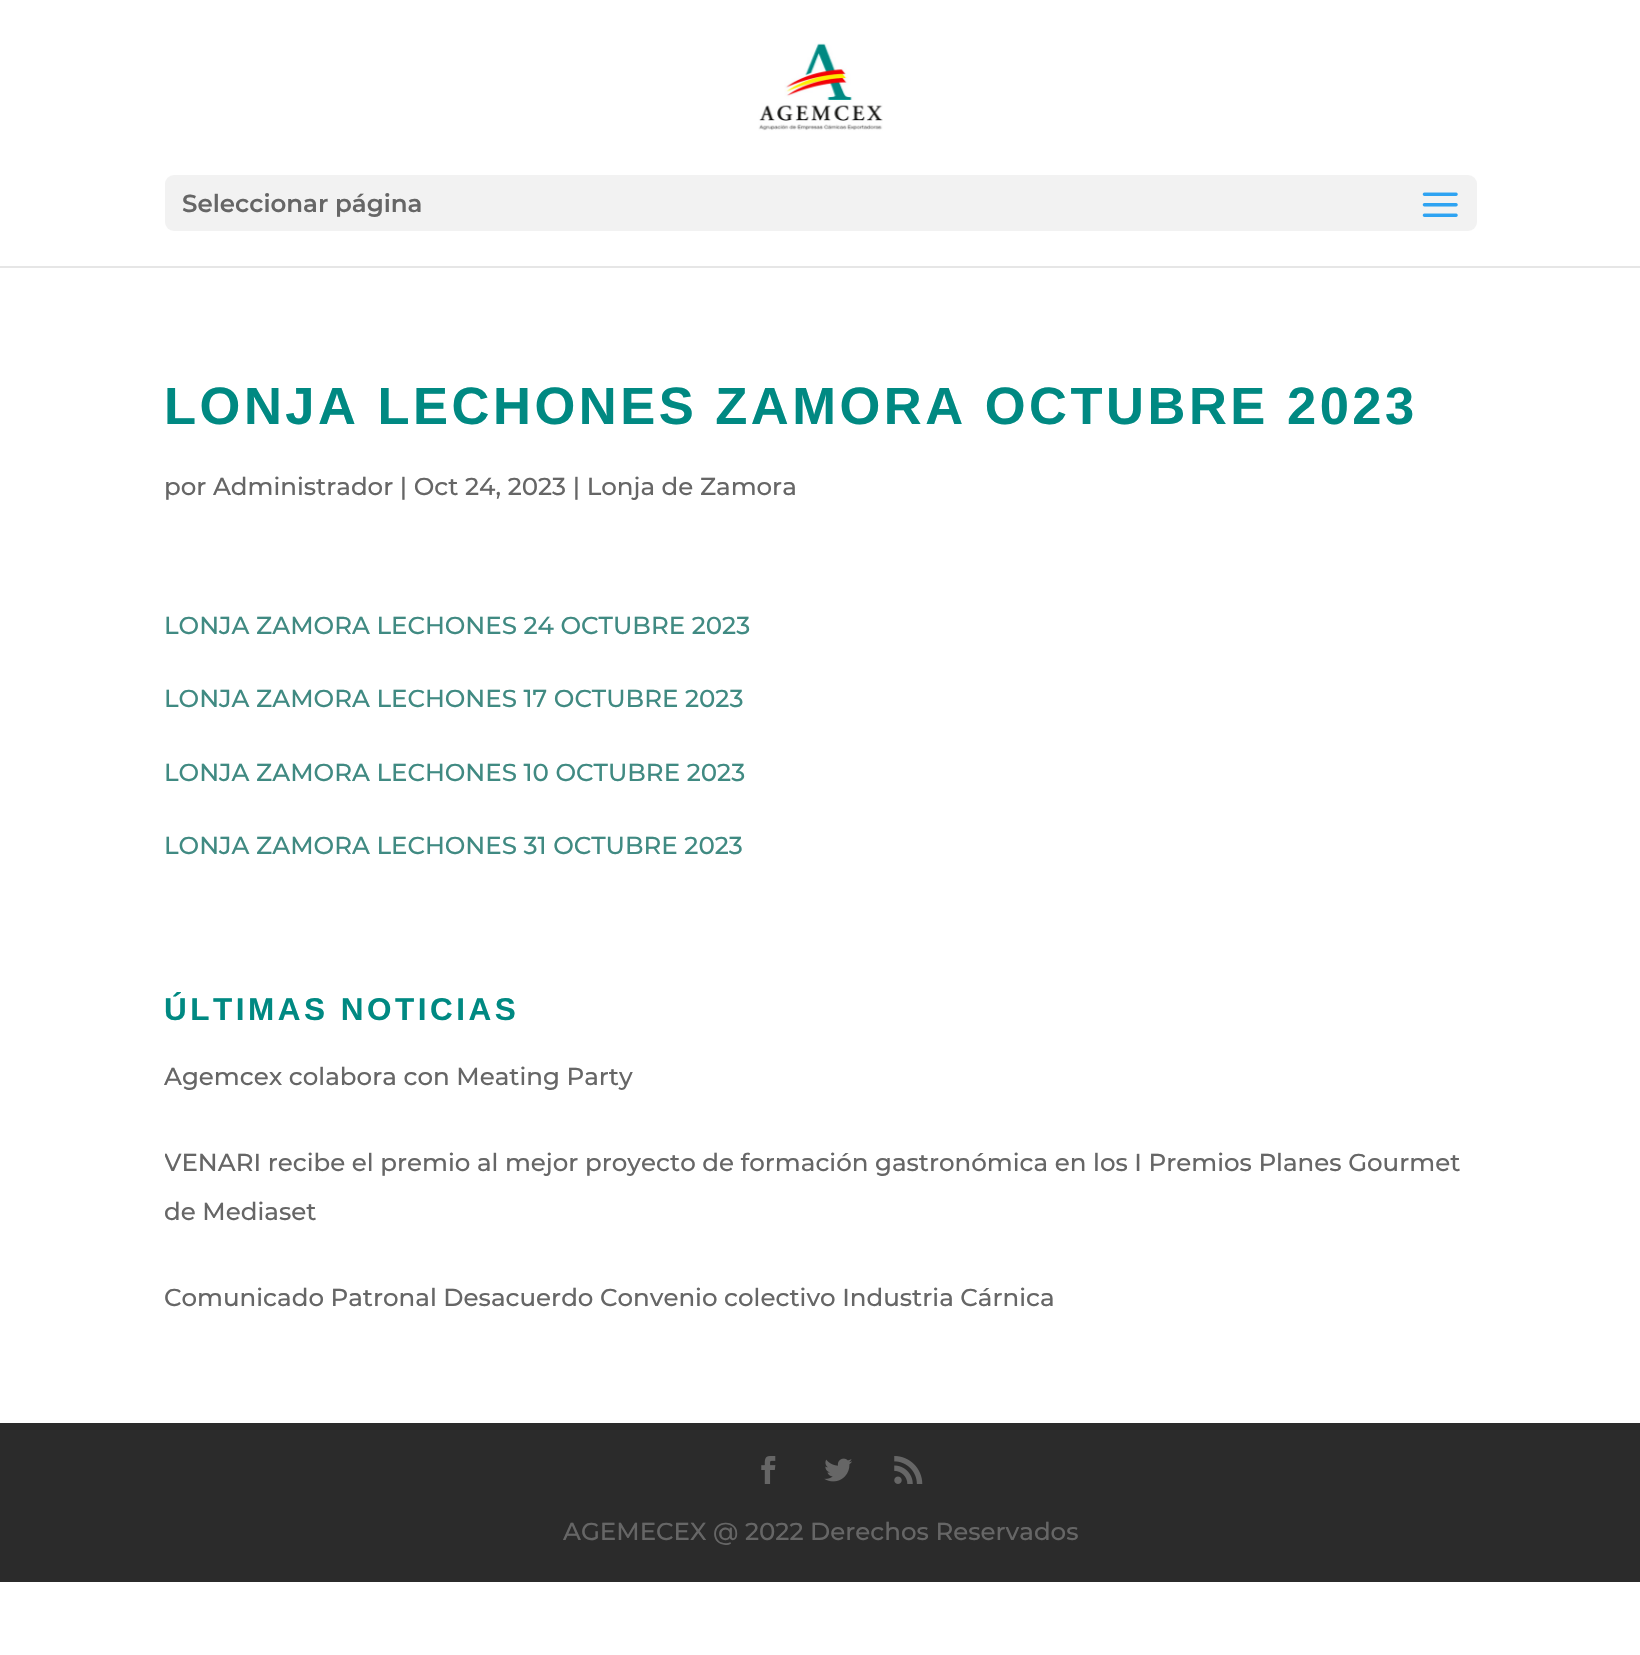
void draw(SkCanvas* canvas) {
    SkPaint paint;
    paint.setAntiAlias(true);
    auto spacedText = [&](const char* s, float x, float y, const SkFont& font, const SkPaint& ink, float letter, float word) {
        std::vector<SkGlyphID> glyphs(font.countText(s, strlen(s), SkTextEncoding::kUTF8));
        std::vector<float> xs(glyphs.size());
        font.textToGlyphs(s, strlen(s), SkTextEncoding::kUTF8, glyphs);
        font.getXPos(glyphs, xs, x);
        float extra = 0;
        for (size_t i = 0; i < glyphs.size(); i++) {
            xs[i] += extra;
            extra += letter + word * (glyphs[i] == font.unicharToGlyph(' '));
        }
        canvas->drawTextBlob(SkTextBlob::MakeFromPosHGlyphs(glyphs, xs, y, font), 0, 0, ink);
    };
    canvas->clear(0xFFFFFFFF);
    paint.setColor(0xFFE6E6E6);
    canvas->drawPath(SkPathBuilder().moveTo(0, 266).lineTo(0, 268).lineTo(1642, 268).lineTo(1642, 2).lineTo(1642, 266).close().detach(), paint);
    canvas->drawImageRect(SkImages::DeferredFromEncodedData(SkData::MakeFromFileName("img1.png")), SkRect::MakeXYWH(758, 43, 125, 88), SkSamplingOptions());
    paint.setColor(0xFFF2F2F2);
    canvas->drawRoundRect(SkRect::MakeXYWH(165, 175, 1312, 56), 9, 9, paint);
    SkFont font1(fontMgr->matchFamilyStyle("Montserrat", SkFontStyle(600, SkFontStyle::kNormal_Width, SkFontStyle::kUpright_Slant)), 24.5f);
    font1.setSubpixel(true);
    paint.setColor(0xFF666666);
    canvas->drawString("Seleccionar página", 182, 212, font1, paint);
    canvas->drawImageRect(SkImages::DeferredFromEncodedData(SkData::MakeFromFileName("img2.png")), SkRect::MakeXYWH(1422, 192, 36, 25), SkSamplingOptions());
    SkFont font2(fontMgr->matchFamilyStyle("Liberation Sans", SkFontStyle::Bold()), 52.5f);
    font2.setSubpixel(true);
    paint.setColor(0xFF008982);
    spacedText("LONJA LECHONES ZAMORA OCTUBRE 2023", 164, 424, font2, paint, 3.5f, 0);
    SkFont font3(fontMgr->matchFamilyStyle("Montserrat", SkFontStyle(500, SkFontStyle::kNormal_Width, SkFontStyle::kUpright_Slant)), 24.5f);
    font3.setSubpixel(true);
    paint.setColor(0xFF666666);
    canvas->drawString("por Administrador | Oct 24, 2023 | Lonja de Zamora", 164, 495, font3, paint);
    paint.setColor(0xFF408A82);
    canvas->drawString("LONJA ZAMORA LECHONES 24 OCTUBRE 2023", 164, 634, font3, paint);
    canvas->drawString("LONJA ZAMORA LECHONES 17 OCTUBRE 2023", 164, 707, font3, paint);
    canvas->drawString("LONJA ZAMORA LECHONES 10 OCTUBRE 2023", 164, 781, font3, paint);
    canvas->drawString("LONJA ZAMORA LECHONES 31 OCTUBRE 2023", 164, 854, font3, paint);
    SkFont font4(fontMgr->matchFamilyStyle("Liberation Sans", SkFontStyle::Bold()), 31.5f);
    font4.setSubpixel(true);
    paint.setColor(0xFF008982);
    spacedText("ÚLTIMAS NOTICIAS", 164, 1020, font4, paint, 3.5f, 0);
    paint.setColor(0xFF666666);
    canvas->drawString("Agemcex colabora con Meating Party", 164, 1085, font3, paint);
    canvas->save();
    canvas->clipRect(SkRect::MakeXYWH(165, 1138, 1312, 98));
    canvas->drawString("VENARI recibe el premio al mejor proyecto de formación gastronómica en los I Premios Planes Gourmet", 164, 1171, font3, paint);
    canvas->restore();
    canvas->drawString("de Mediaset", 164, 1220, font3, paint);
    canvas->drawString("Comunicado Patronal Desacuerdo Convenio colectivo Industria Cárnica", 164, 1306, font3, paint);
    paint.setColor(0xFF2B2B2B);
    canvas->drawRect(SkRect::MakeXYWH(0, 1423, 1640, 159), paint);
    canvas->drawImageRect(SkImages::DeferredFromEncodedData(SkData::MakeFromFileName("img3.png")), SkRect::MakeXYWH(761, 1456, 15, 28), SkSamplingOptions());
    canvas->drawImageRect(SkImages::DeferredFromEncodedData(SkData::MakeFromFileName("img4.png")), SkRect::MakeXYWH(824, 1458, 28, 24), SkSamplingOptions());
    canvas->drawImageRect(SkImages::DeferredFromEncodedData(SkData::MakeFromFileName("img5.png")), SkRect::MakeXYWH(894, 1456, 29, 28), SkSamplingOptions());
    paint.setColor(0xFF666666);
    canvas->drawString("AGEMECEX @ 2022 Derechos Reservados", 563, 1540, font3, paint);
}
